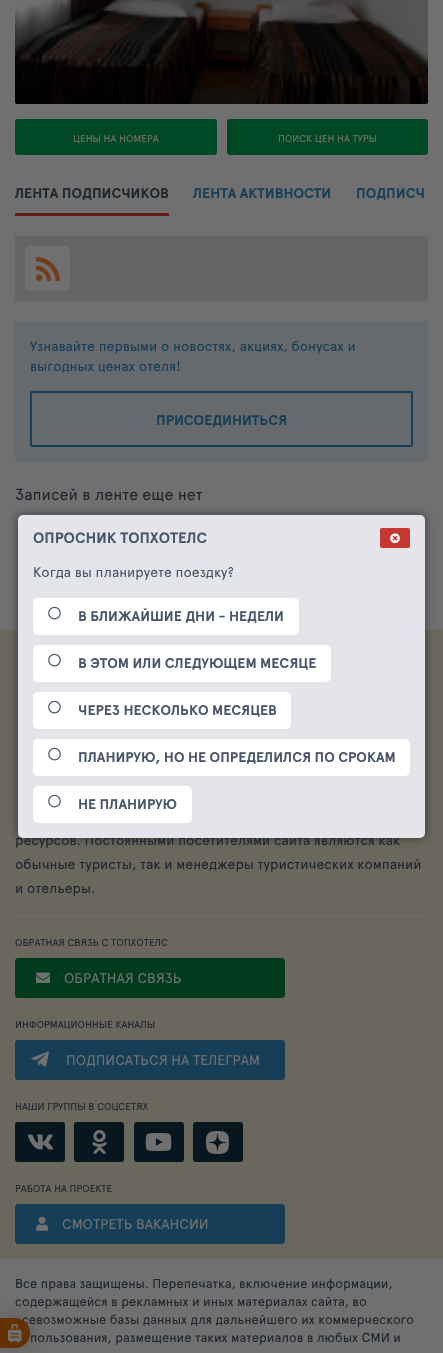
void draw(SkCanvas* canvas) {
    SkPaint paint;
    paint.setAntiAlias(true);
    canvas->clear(0xFF707070);
    canvas->drawImageRect(SkImages::DeferredFromEncodedData(SkData::MakeFromFileName("img1.png")), SkRect::MakeXYWH(15, 0, 413, 104), SkSamplingOptions());
    paint.setColor(0xFF004924);
    canvas->drawRoundRect(SkRect::MakeXYWH(15, 119, 202, 36), 3, 3, paint);
    SkFont font1(fontMgr->matchFamilyStyle("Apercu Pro", SkFontStyle::Normal()), 10);
    font1.setSubpixel(true);
    paint.setColor(0xFF707070);
    canvas->drawString("ЦЕНЫ НА НОМЕРА", 73, 142, font1, paint);
    paint.setColor(0xFF004924);
    canvas->drawRoundRect(SkRect::MakeXYWH(227, 119, 201, 36), 3, 3, paint);
    paint.setColor(0xFF707070);
    canvas->drawString("ПОИСК ЦЕН НА ТУРЫ", 278, 142, font1, paint);
    paint.setColor(0xFF631A1A);
    canvas->drawRect(SkRect::MakeXYWH(15, 213, 154, 3), paint);
    SkFont font2(fontMgr->matchFamilyStyle("Apercu Pro", SkFontStyle::Bold()), 14);
    font2.setSubpixel(true);
    paint.setColor(0xFF1F262E);
    canvas->drawString("ЛЕНТА ПОДПИСЧИКОВ", 15, 198, font2, paint);
    paint.setColor(0xFF163E57);
    canvas->drawString("ЛЕНТА АКТИВНОСТИ", 193, 198, font2, paint);
    canvas->drawString("ПОДПИСЧ", 356, 198, font2, paint);
    paint.setColor(0xFF646567);
    canvas->drawRect(SkRect::MakeXYWH(15, 236, 413, 65), paint);
    paint.setColor(0xFF707070);
    canvas->drawRoundRect(SkRect::MakeXYWH(25, 246, 45, 45), 5, 5, paint);
    canvas->drawImageRect(SkImages::DeferredFromEncodedData(SkData::MakeFromFileName("img2.png")), SkRect::MakeXYWH(36, 257, 24, 24), SkSamplingOptions());
    paint.setColor(0xFF666A6D);
    canvas->drawRoundRect(SkRect::MakeXYWH(15, 321, 413, 141), 2, 2, paint);
    SkFont font3(fontMgr->matchFamilyStyle("Apercu Pro", SkFontStyle::Normal()), 14);
    font3.setSubpixel(true);
    paint.setColor(0xFF163E57);
    canvas->drawString("Узнавайте первыми о новостях, акциях, бонусах и", 30, 351, font3, paint);
    canvas->drawString("выгодных ценах отеля!", 30, 371, font3, paint);
    paint.setStyle(SkPaint::kStroke_Style);
    paint.setStrokeWidth(2);
    canvas->drawRoundRect(SkRect::MakeXYWH(31, 392, 381, 54), 1, 1, paint);
    paint.setStyle(SkPaint::kFill_Style);
    canvas->drawString("ПРИСОЕДИНИТЬСЯ", 156, 425, font2, paint);
    SkFont font4(fontMgr->matchFamilyStyle("Apercu Pro", SkFontStyle::Normal()), 16);
    font4.setSubpixel(true);
    paint.setColor(0xFF1F262E);
    canvas->drawString("Записей в ленте еще нет", 15, 500, font4, paint);
    paint.setColor(0xFF6A675D);
    canvas->drawRect(SkRect::MakeXYWH(0, 630, 443, 629), paint);
    paint.setColor(0xFF707070);
    canvas->drawRect(SkRect::MakeXYWH(15, 676, 413, 1), paint);
    paint.setColor(0x80000000);
    paint.setMaskFilter(SkMaskFilter::MakeBlur(kNormal_SkBlurStyle, 5));
    canvas->drawRoundRect(SkRect::MakeXYWH(18, 515, 407, 323), 5, 5, paint);
    paint.setMaskFilter(nullptr);
    paint.setColor(0xFF1F262E);
    canvas->drawString("ресурсов. Постоянными посетителями сайта являются как", 15, 845, font3, paint);
    paint.setColor(0xFFE4E5EA);
    canvas->drawRoundRect(SkRect::MakeXYWH(18, 515, 407, 323), 5, 5, paint);
    SkFont font5(fontMgr->matchFamilyStyle("Apercu Pro", SkFontStyle::Bold()), 15);
    font5.setSubpixel(true);
    paint.setColor(0xFF475669);
    canvas->drawString("ОПРОСНИК ТОПХОТЕЛС", 33, 543, font5, paint);
    paint.setColor(0xFFC83831);
    canvas->drawRoundRect(SkRect::MakeXYWH(380, 528, 30, 20), 2, 2, paint);
    canvas->drawImageRect(SkImages::DeferredFromEncodedData(SkData::MakeFromFileName("img3.png")), SkRect::MakeXYWH(390, 533, 10, 11), SkSamplingOptions());
    paint.setColor(0xFF475669);
    canvas->drawString("Когда вы планируете поездку?", 33, 577, font3, paint);
    paint.setColor(0xFFFFFFFF);
    canvas->drawRoundRect(SkRect::MakeXYWH(33, 598, 266, 37), 5, 5, paint);
    canvas->drawImageRect(SkImages::DeferredFromEncodedData(SkData::MakeFromFileName("img4.png")), SkRect::MakeXYWH(48, 606, 13, 14), SkSamplingOptions());
    paint.setColor(0xFF475669);
    canvas->drawString("В БЛИЖАЙШИЕ ДНИ - НЕДЕЛИ", 78, 621, font2, paint);
    paint.setColor(0xFFFFFFFF);
    canvas->drawRoundRect(SkRect::MakeXYWH(33, 645, 298, 37), 5, 5, paint);
    canvas->drawImageRect(SkImages::DeferredFromEncodedData(SkData::MakeFromFileName("img4.png")), SkRect::MakeXYWH(48, 653, 13, 14), SkSamplingOptions());
    paint.setColor(0xFF475669);
    canvas->drawString("В ЭТОМ ИЛИ СЛЕДУЮЩЕМ МЕСЯЦЕ", 78, 668, font2, paint);
    paint.setColor(0xFFFFFFFF);
    canvas->drawRoundRect(SkRect::MakeXYWH(33, 692, 258, 37), 5, 5, paint);
    canvas->drawImageRect(SkImages::DeferredFromEncodedData(SkData::MakeFromFileName("img4.png")), SkRect::MakeXYWH(48, 700, 13, 14), SkSamplingOptions());
    paint.setColor(0xFF475669);
    canvas->drawString("ЧЕРЕЗ НЕСКОЛЬКО МЕСЯЦЕВ", 78, 715, font2, paint);
    paint.setColor(0xFFFFFFFF);
    canvas->drawRoundRect(SkRect::MakeXYWH(33, 739, 377, 37), 5, 5, paint);
    canvas->drawImageRect(SkImages::DeferredFromEncodedData(SkData::MakeFromFileName("img4.png")), SkRect::MakeXYWH(48, 747, 13, 14), SkSamplingOptions());
    paint.setColor(0xFF475669);
    canvas->drawString("ПЛАНИРУЮ, НО НЕ ОПРЕДЕЛИЛСЯ ПО СРОКАМ", 78, 762, font2, paint);
    paint.setColor(0xFFFFFFFF);
    canvas->drawRoundRect(SkRect::MakeXYWH(33, 786, 159, 37), 5, 5, paint);
    canvas->drawImageRect(SkImages::DeferredFromEncodedData(SkData::MakeFromFileName("img4.png")), SkRect::MakeXYWH(48, 794, 13, 14), SkSamplingOptions());
    paint.setColor(0xFF475669);
    canvas->drawString("НЕ ПЛАНИРУЮ", 78, 809, font2, paint);
    paint.setColor(0xFF707070);
    canvas->drawRect(SkRect::MakeXYWH(15, 915, 413, 1), paint);
    paint.setColor(0xFF1F262E);
    canvas->drawString("обычные туристы, так и менеджеры туристических компаний", 15, 869, font3, paint);
    canvas->drawString("и отельеры.", 15, 893, font3, paint);
    canvas->drawString("ОБРАТНАЯ СВЯЗЬ С ТОПХОТЕЛС", 15, 946, font1, paint);
    paint.setColor(0xFF003B1D);
    canvas->drawRoundRect(SkRect::MakeXYWH(15.5f, 958.5f, 269, 39), 2.5f, 2.5f, paint);
    paint.setStyle(SkPaint::kStroke_Style);
    paint.setStrokeWidth(1);
    canvas->drawRoundRect(SkRect::MakeXYWH(15.5f, 958.5f, 269, 39), 2.5f, 2.5f, paint);
    canvas->drawImageRect(SkImages::DeferredFromEncodedData(SkData::MakeFromFileName("img5.png")), SkRect::MakeXYWH(36, 972, 14, 11), SkSamplingOptions());
    paint.setStyle(SkPaint::kFill_Style);
    paint.setColor(0xFF707070);
    canvas->drawString("ОБРАТНАЯ СВЯЗЬ", 64, 983, font3, paint);
    paint.setColor(0xFF1F262E);
    canvas->drawString("ИНФОРМАЦИОННЫЕ КАНАЛЫ", 15, 1028, font1, paint);
    paint.setColor(0xFF163E57);
    canvas->drawRoundRect(SkRect::MakeXYWH(15, 1040, 270, 40), 3, 3, paint);
    canvas->drawImageRect(SkImages::DeferredFromEncodedData(SkData::MakeFromFileName("img6.png")), SkRect::MakeXYWH(31, 1051, 18, 16), SkSamplingOptions());
    paint.setStyle(SkPaint::kStroke_Style);
    canvas->drawRoundRect(SkRect::MakeXYWH(15.5f, 1040.5f, 269, 39), 2.5f, 2.5f, paint);
    paint.setStyle(SkPaint::kFill_Style);
    paint.setColor(0xFF707070);
    canvas->drawString("ПОДПИСАТЬСЯ НА ТЕЛЕГРАМ", 66, 1065, font3, paint);
    paint.setColor(0xFF1F262E);
    canvas->drawString("НАШИ ГРУППЫ В СОЦСЕТЯХ", 15, 1110, font1, paint);
    paint.setColor(0xFF07161F);
    canvas->drawRoundRect(SkRect::MakeXYWH(15, 1122, 50, 40), 3, 3, paint);
    canvas->drawImageRect(SkImages::DeferredFromEncodedData(SkData::MakeFromFileName("img7.png")), SkRect::MakeXYWH(27, 1134, 27, 16), SkSamplingOptions());
    canvas->drawRoundRect(SkRect::MakeXYWH(74, 1122, 50, 40), 3, 3, paint);
    canvas->drawImageRect(SkImages::DeferredFromEncodedData(SkData::MakeFromFileName("img8.png")), SkRect::MakeXYWH(92, 1130, 15, 24), SkSamplingOptions());
    canvas->drawRoundRect(SkRect::MakeXYWH(134, 1122, 50, 40), 3, 3, paint);
    canvas->drawImageRect(SkImages::DeferredFromEncodedData(SkData::MakeFromFileName("img9.png")), SkRect::MakeXYWH(145, 1133, 27, 18), SkSamplingOptions());
    canvas->drawRoundRect(SkRect::MakeXYWH(193, 1122, 50, 40), 3, 3, paint);
    canvas->drawImageRect(SkImages::DeferredFromEncodedData(SkData::MakeFromFileName("img10.png")), SkRect::MakeXYWH(206, 1131, 23, 23), SkSamplingOptions());
    paint.setColor(0xFF1F262E);
    canvas->drawString("РАБОТА НА ПРОЕКТЕ", 15, 1192, font1, paint);
    paint.setColor(0xFF163E57);
    canvas->drawRoundRect(SkRect::MakeXYWH(15.5f, 1204.5f, 269, 39), 2.5f, 2.5f, paint);
    paint.setStyle(SkPaint::kStroke_Style);
    canvas->drawRoundRect(SkRect::MakeXYWH(15.5f, 1204.5f, 269, 39), 2.5f, 2.5f, paint);
    canvas->drawImageRect(SkImages::DeferredFromEncodedData(SkData::MakeFromFileName("img11.png")), SkRect::MakeXYWH(36, 1216, 13, 15), SkSamplingOptions());
    paint.setStyle(SkPaint::kFill_Style);
    paint.setColor(0xFF707070);
    canvas->drawString("СМОТРЕТЬ ВАКАНСИИ", 62, 1229, font3, paint);
    SkFont font6(fontMgr->matchFamilyStyle("Apercu Pro", SkFontStyle::Normal()), 13);
    font6.setSubpixel(true);
    paint.setColor(0xFF1F262E);
    canvas->drawString("Все права защищены. Перепечатка, включение информации,", 15, 1288, font6, paint);
    canvas->drawString("содержащейся в рекламных и иных материалах сайта, во", 15, 1306, font6, paint);
    canvas->drawString("севозможные базы данных для дальнейшего их коммерческого", 22, 1324, font6, paint);
    canvas->drawString("пользования, размещение таких материалов в любых СМИ и", 30, 1342, font6, paint);
    paint.setColor(0x40000000);
    paint.setMaskFilter(SkMaskFilter::MakeBlur(kNormal_SkBlurStyle, 10));
    canvas->drawRoundRect(SkRect::MakeXYWH(0, 1318, 30, 30), 15, 15, paint);
    paint.setMaskFilter(nullptr);
    paint.setColor(0xFF633200);
    canvas->drawPath(SkPathBuilder().moveTo(0, 1318).lineTo(15, 1318).cubicTo(23.5f, 1318, 30, 1324.5f, 30, 1333).cubicTo(30, 1341.5f, 23.5f, 1348, 15, 1348).lineTo(0, 1348).close().detach(), paint);
    canvas->drawImageRect(SkImages::DeferredFromEncodedData(SkData::MakeFromFileName("img12.png")), SkRect::MakeXYWH(8, 1324, 14, 19), SkSamplingOptions());
}
